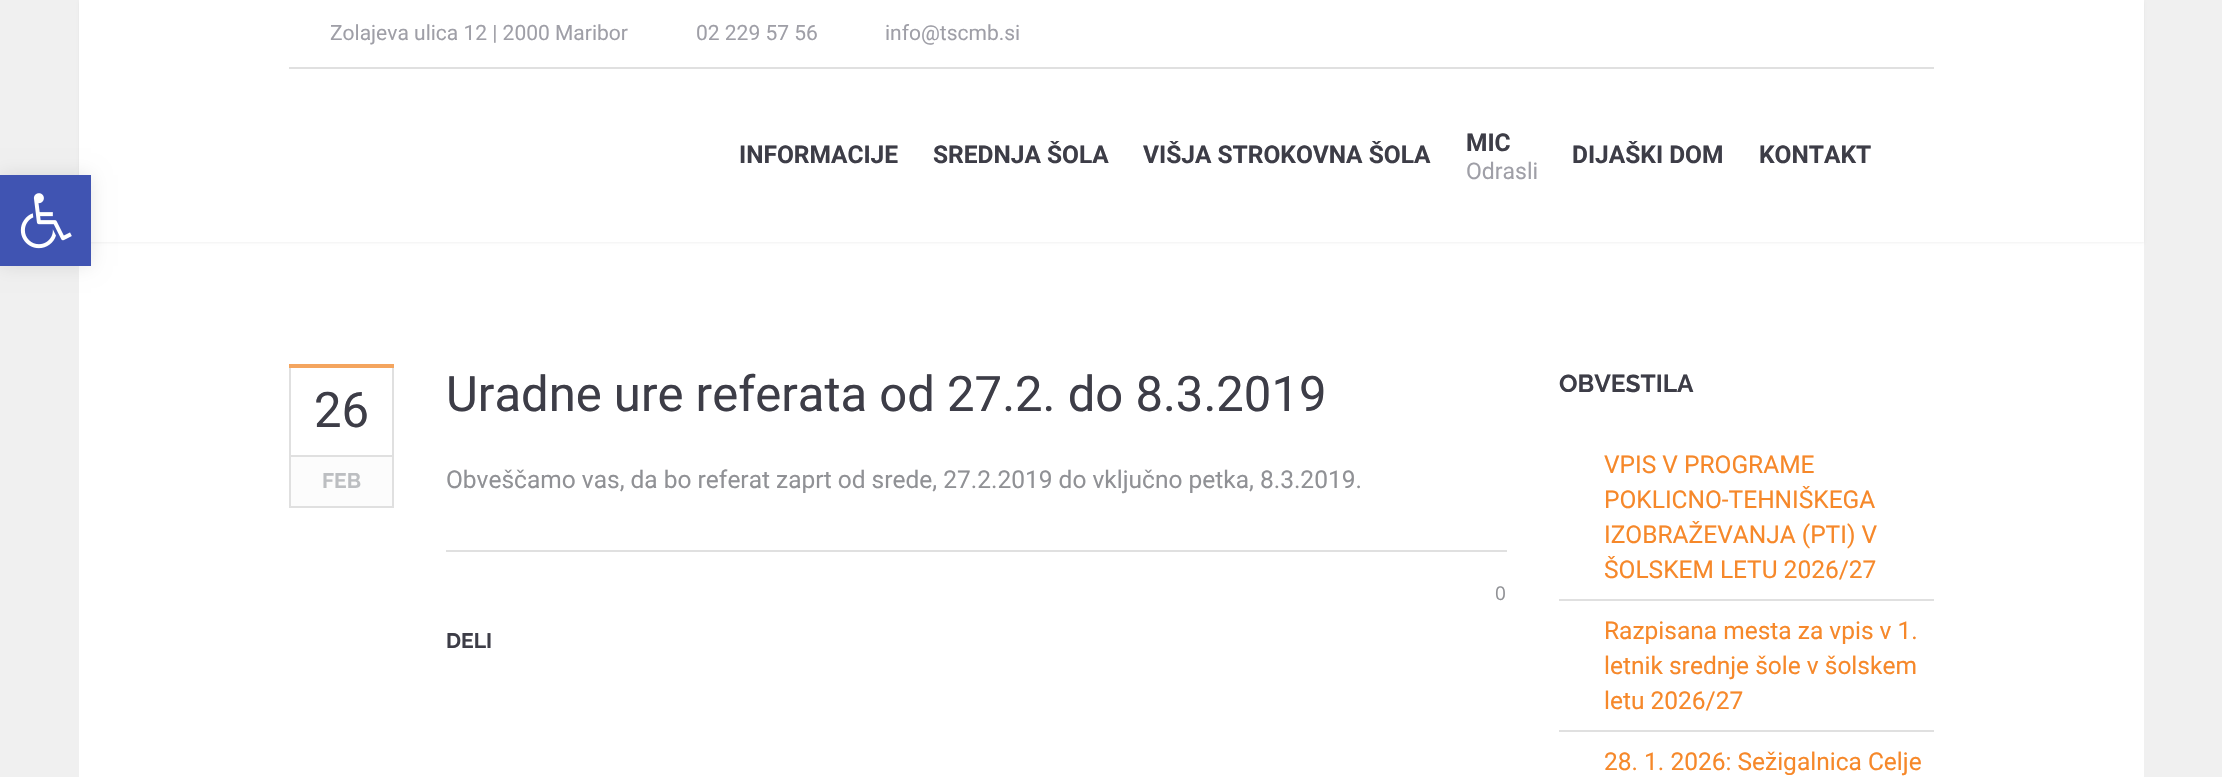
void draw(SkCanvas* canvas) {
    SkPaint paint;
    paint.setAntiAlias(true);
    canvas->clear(0xFFF0F0F0);
    paint.setColor(0xFFFFFFFF);
    canvas->drawRect(SkRect::MakeXYWH(79, 242, 2065, 535), paint);
    paint.setColor(0x0D000000);
    paint.setMaskFilter(SkMaskFilter::MakeBlur(kNormal_SkBlurStyle, 1));
    canvas->drawRect(SkRect::MakeXYWH(79, 2, 2065, 241), paint);
    paint.setMaskFilter(nullptr);
    paint.setColor(0xFFFFFFFF);
    canvas->drawRect(SkRect::MakeXYWH(79, 0, 2065, 242), paint);
    paint.setColor(0x1A000000);
    paint.setMaskFilter(SkMaskFilter::MakeBlur(kNormal_SkBlurStyle, 9));
    canvas->drawRect(SkRect::MakeXYWH(0, 175, 91, 91), paint);
    paint.setMaskFilter(nullptr);
    paint.setColor(0xFF4054B2);
    canvas->drawRect(SkRect::MakeXYWH(0, 175, 91, 91), paint);
    canvas->drawImageRect(SkImages::DeferredFromEncodedData(SkData::MakeFromFileName("img1.png")), SkRect::MakeXYWH(20, 193, 52, 56), SkSamplingOptions());
    SkFont font1(fontMgr->matchFamilyStyle("Roboto", SkFontStyle::Normal()), 21);
    font1.setSubpixel(true);
    paint.setColor(0xFF9F9FA7);
    canvas->drawString("Zolajeva ulica 12 | 2000 Maribor", 330, 40, font1, paint);
    canvas->drawString("02 229 57 56", 696, 40, font1, paint);
    canvas->drawString("info@tscmb.si", 885, 40, font1, paint);
    paint.setColor(0xFFE0E0E0);
    canvas->drawRect(SkRect::MakeXYWH(289, 67, 1645, 2), paint);
    SkFont font2(fontMgr->matchFamilyStyle("Roboto", SkFontStyle::Bold()), 24.5f);
    font2.setSubpixel(true);
    paint.setColor(0xFF3D3D47);
    canvas->drawString("INFORMACIJE", 739, 163, font2, paint);
    canvas->drawString("SREDNJA ŠOLA", 933, 163, font2, paint);
    canvas->drawString("VIŠJA STROKOVNA ŠOLA", 1143, 163, font2, paint);
    canvas->drawString("MIC", 1466, 151, font2, paint);
    SkFont font3(fontMgr->matchFamilyStyle("Roboto", SkFontStyle::Normal()), 23);
    font3.setSubpixel(true);
    paint.setColor(0xFF9F9FA7);
    canvas->drawString("Odrasli", 1466, 179, font3, paint);
    paint.setColor(0xFF3D3D47);
    canvas->drawString("DIJAŠKI DOM", 1572, 163, font2, paint);
    canvas->drawString("KONTAKT", 1759, 163, font2, paint);
    paint.setColor(0xFFF4A55F);
    canvas->drawRect(SkRect::MakeXYWH(289, 364, 105, 4), paint);
    paint.setColor(0xFFE0E0E0);
    canvas->drawRect(SkRect::MakeXYWH(392, 368, 2, 140), paint);
    canvas->drawRect(SkRect::MakeXYWH(289, 506, 105, 2), paint);
    canvas->drawRect(SkRect::MakeXYWH(289, 368, 2, 140), paint);
    SkFont font4(fontMgr->matchFamilyStyle("Roboto", SkFontStyle::Normal()), 49);
    font4.setSubpixel(true);
    paint.setColor(0xFF3D3D47);
    canvas->drawString("26", 314, 427, font4, paint);
    paint.setColor(0xFFFCFCFC);
    canvas->drawRect(SkRect::MakeXYWH(291, 457, 101, 49), paint);
    paint.setColor(0xFFE0E0E0);
    canvas->drawRect(SkRect::MakeXYWH(291, 455, 101, 2), paint);
    SkFont font5(fontMgr->matchFamilyStyle("Raleway", SkFontStyle::Bold()), 21);
    font5.setSubpixel(true);
    paint.setColor(0xFFBCBEC1);
    canvas->drawString("FEB", 322, 488, font5, paint);
    paint.setColor(0xFF3D3D47);
    canvas->drawString("Uradne ure referata od 27.2. do 8.3.2019", 446, 411, font4, paint);
    SkFont font6(fontMgr->matchFamilyStyle("Roboto", SkFontStyle::Normal()), 24.5f);
    font6.setSubpixel(true);
    paint.setColor(0xFF909195);
    canvas->drawString("Obveščamo vas, da bo referat zaprt od srede, 27.2.2019 do vključno petka, 8.3.2019.", 446, 488, font6, paint);
    paint.setColor(0xFFE0E0E0);
    canvas->drawRect(SkRect::MakeXYWH(446, 550, 1061, 2), paint);
    SkFont font7(fontMgr->matchFamilyStyle("Open Sans", SkFontStyle::Normal()), 19);
    font7.setSubpixel(true);
    paint.setColor(0xFF909195);
    canvas->drawString("0", 1495, 600, font7, paint);
    paint.setColor(0xFF3D3D47);
    canvas->drawString("DELI", 446, 648, font5, paint);
    SkFont font8(fontMgr->matchFamilyStyle("Raleway", SkFontStyle::Bold()), 24.5f);
    font8.setSubpixel(true);
    canvas->drawString("OBVESTILA", 1559, 392, font8, paint);
    paint.setColor(0xFFF6882A);
    canvas->drawString("VPIS V PROGRAME", 1604, 473, font6, paint);
    canvas->drawString("POKLICNO-TEHNIŠKEGA", 1604, 508, font6, paint);
    canvas->drawString("IZOBRAŽEVANJA (PTI) V", 1604, 543, font6, paint);
    canvas->drawString("ŠOLSKEM LETU 2026/27", 1604, 578, font6, paint);
    paint.setColor(0xFFE0E0E0);
    canvas->drawRect(SkRect::MakeXYWH(1559, 599, 375, 2), paint);
    paint.setColor(0xFFF6882A);
    canvas->drawString("Razpisana mesta za vpis v 1.", 1604, 639, font6, paint);
    canvas->drawString("letnik srednje šole v šolskem", 1604, 674, font6, paint);
    canvas->drawString("letu 2026/27", 1604, 709, font6, paint);
    paint.setColor(0xFFE0E0E0);
    canvas->drawRect(SkRect::MakeXYWH(1559, 730, 375, 2), paint);
    paint.setColor(0xFFF6882A);
    canvas->drawString("28. 1. 2026: Sežigalnica Celje", 1604, 770, font6, paint);
}
